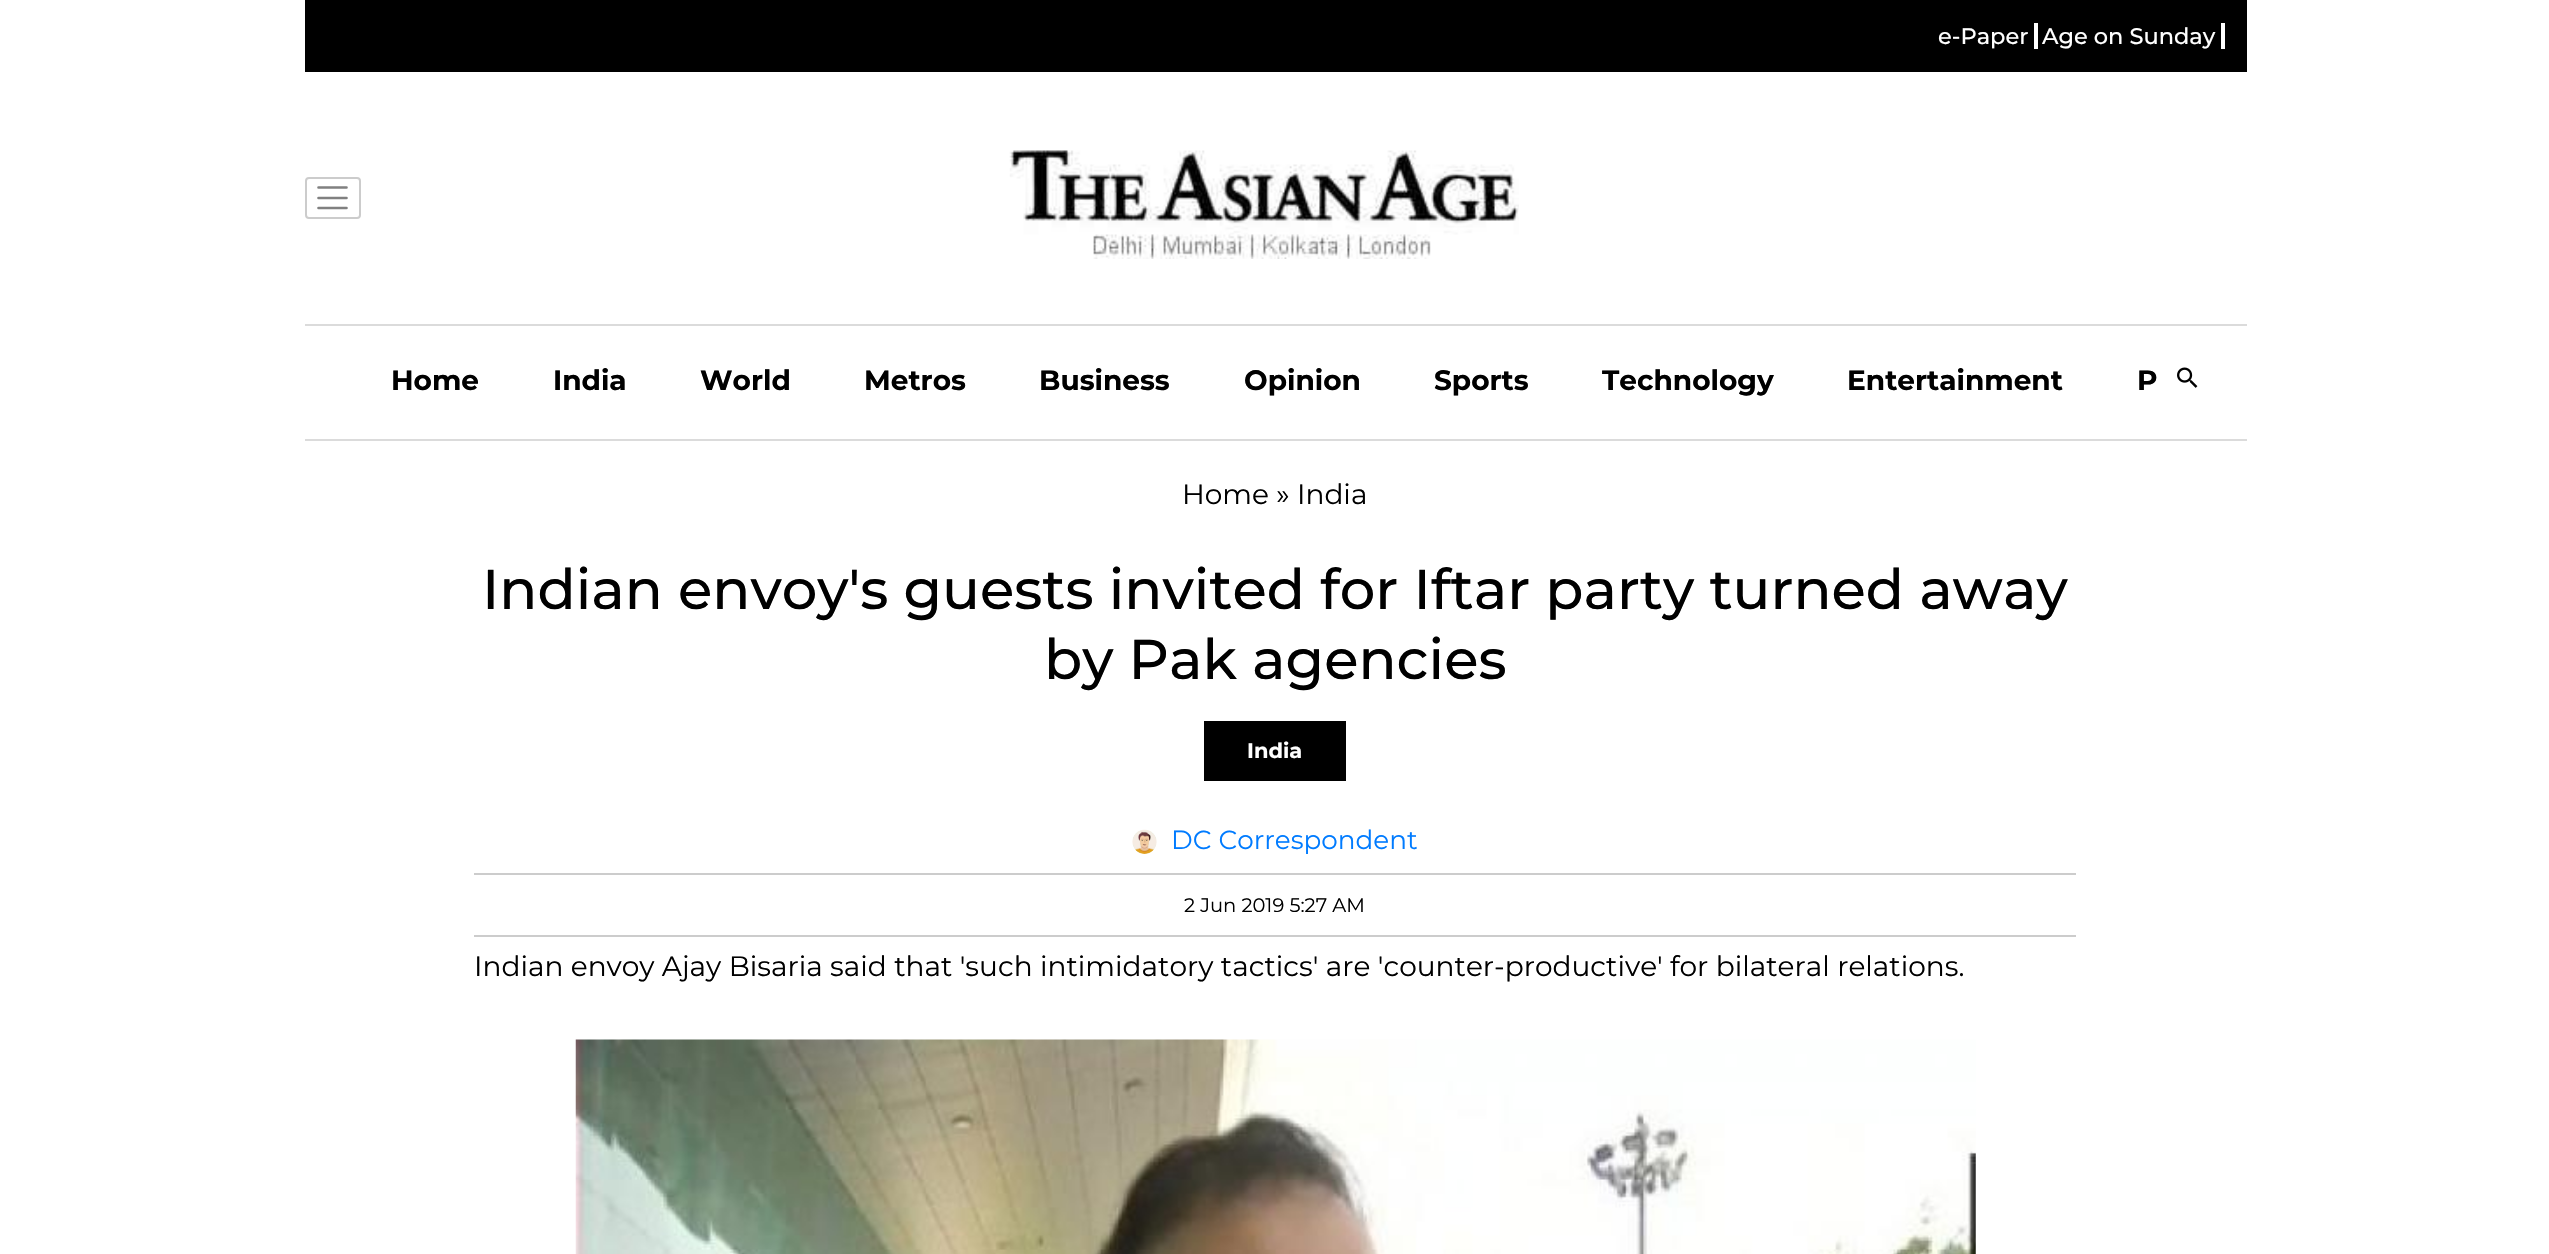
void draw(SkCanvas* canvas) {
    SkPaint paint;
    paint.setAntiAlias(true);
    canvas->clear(0xFFFFFFFF);
    paint.setColor(0xFF000000);
    canvas->drawRect(SkRect::MakeXYWH(305, 0, 1942, 72), paint);
    SkFont font1(fontMgr->matchFamilyStyle("Montserrat", SkFontStyle(500, SkFontStyle::kNormal_Width, SkFontStyle::kUpright_Slant)), 22.5f);
    font1.setSubpixel(true);
    paint.setColor(0xFFFFFFFF);
    canvas->drawString("e-Paper", 1938, 44, font1, paint);
    canvas->drawRect(SkRect::MakeXYWH(2034, 23, 4, 26), paint);
    canvas->drawString("Age on Sunday", 2042, 44, font1, paint);
    canvas->drawRect(SkRect::MakeXYWH(2221, 23, 4, 26), paint);
    paint.setColor(0xFFDBDBDB);
    canvas->drawRect(SkRect::MakeXYWH(305, 324, 1942, 2), paint);
    paint.setStyle(SkPaint::kStroke_Style);
    paint.setStrokeWidth(2.6f);
    paint.setStrokeCap(SkPaint::kRound_Cap);
    paint.setColor(0xFF808080);
    canvas->drawPath(SkPathBuilder().moveTo(318.5f, 187.5f).lineTo(346.5f, 187.5f).moveTo(318.5f, 198).lineTo(346.5f, 198).moveTo(318.5f, 208).lineTo(346.5f, 208).detach(), paint);
    paint.setStrokeWidth(2);
    paint.setStrokeCap(SkPaint::kButt_Cap);
    paint.setColor(0xFFCCCCCC);
    canvas->drawRoundRect(SkRect::MakeXYWH(306, 178, 54, 40), 3, 3, paint);
    canvas->drawImageRect(SkImages::DeferredFromEncodedData(SkData::MakeFromFileName("img1.png")), SkRect::MakeXYWH(1009, 150, 510, 109), SkSamplingOptions());
    paint.setStyle(SkPaint::kFill_Style);
    paint.setColor(0xFFDBDBDB);
    canvas->drawRect(SkRect::MakeXYWH(305, 439, 1942, 2), paint);
    SkFont font2(fontMgr->matchFamilyStyle("Montserrat", SkFontStyle::Bold()), 28);
    font2.setSubpixel(true);
    paint.setColor(0xFF000000);
    canvas->drawString("Home", 391, 390, font2, paint);
    canvas->drawString("India", 553, 390, font2, paint);
    canvas->drawString("World", 700, 390, font2, paint);
    canvas->drawString("Metros", 864, 390, font2, paint);
    canvas->drawString("Business", 1039, 390, font2, paint);
    canvas->drawString("Opinion", 1244, 390, font2, paint);
    canvas->drawString("Sports", 1434, 390, font2, paint);
    canvas->drawString("Technology", 1602, 390, font2, paint);
    canvas->drawString("Entertainment", 1847, 390, font2, paint);
    canvas->drawString("P", 2137, 390, font2, paint);
    canvas->drawImageRect(SkImages::DeferredFromEncodedData(SkData::MakeFromFileName("img2.png")), SkRect::MakeXYWH(2177, 367, 21, 21), SkSamplingOptions());
    SkFont font3(fontMgr->matchFamilyStyle("Montserrat", SkFontStyle::Normal()), 28);
    font3.setSubpixel(true);
    canvas->drawString("Home » India", 1182, 504, font3, paint);
    SkFont font4(fontMgr->matchFamilyStyle("Montserrat", SkFontStyle(500, SkFontStyle::kNormal_Width, SkFontStyle::kUpright_Slant)), 56);
    font4.setSubpixel(true);
    canvas->drawString("Indian envoy's guests invited for Iftar party turned away", 482, 609, font4, paint);
    canvas->drawString("by Pak agencies", 1044, 679, font4, paint);
    canvas->drawRect(SkRect::MakeXYWH(1204, 721, 142, 60), paint);
    SkFont font5(fontMgr->matchFamilyStyle("Montserrat", SkFontStyle::Bold()), 21);
    font5.setSubpixel(true);
    paint.setColor(0xFFFFFFFF);
    canvas->drawString("India", 1247, 758, font5, paint);
    canvas->drawImageRect(SkImages::DeferredFromEncodedData(SkData::MakeFromFileName("img3.png")), SkRect::MakeXYWH(1132, 829, 25, 25), SkSamplingOptions());
    SkFont font6(fontMgr->matchFamilyStyle("Montserrat", SkFontStyle::Normal()), 26.25f);
    font6.setSubpixel(true);
    paint.setColor(0xFF007BFF);
    canvas->drawString("DC Correspondent", 1171, 849, font6, paint);
    paint.setColor(0xFFCCCCCC);
    canvas->drawRect(SkRect::MakeXYWH(474, 873, 1602, 2), paint);
    canvas->drawRect(SkRect::MakeXYWH(474, 935, 1602, 2), paint);
    SkFont font7(fontMgr->matchFamilyStyle("Montserrat", SkFontStyle::Normal()), 19.5f);
    font7.setSubpixel(true);
    paint.setColor(0xFF000000);
    canvas->drawString("2 Jun 2019 5:27 AM", 1184, 912, font7, paint);
    canvas->drawString("Indian envoy Ajay Bisaria said that 'such intimidatory tactics' are 'counter-productive' for bilateral relations.", 474, 976, font3, paint);
    canvas->drawImageRect(SkImages::DeferredFromEncodedData(SkData::MakeFromFileName("img4.png")), SkRect::MakeXYWH(575, 1039, 1401, 215), SkSamplingOptions());
}
